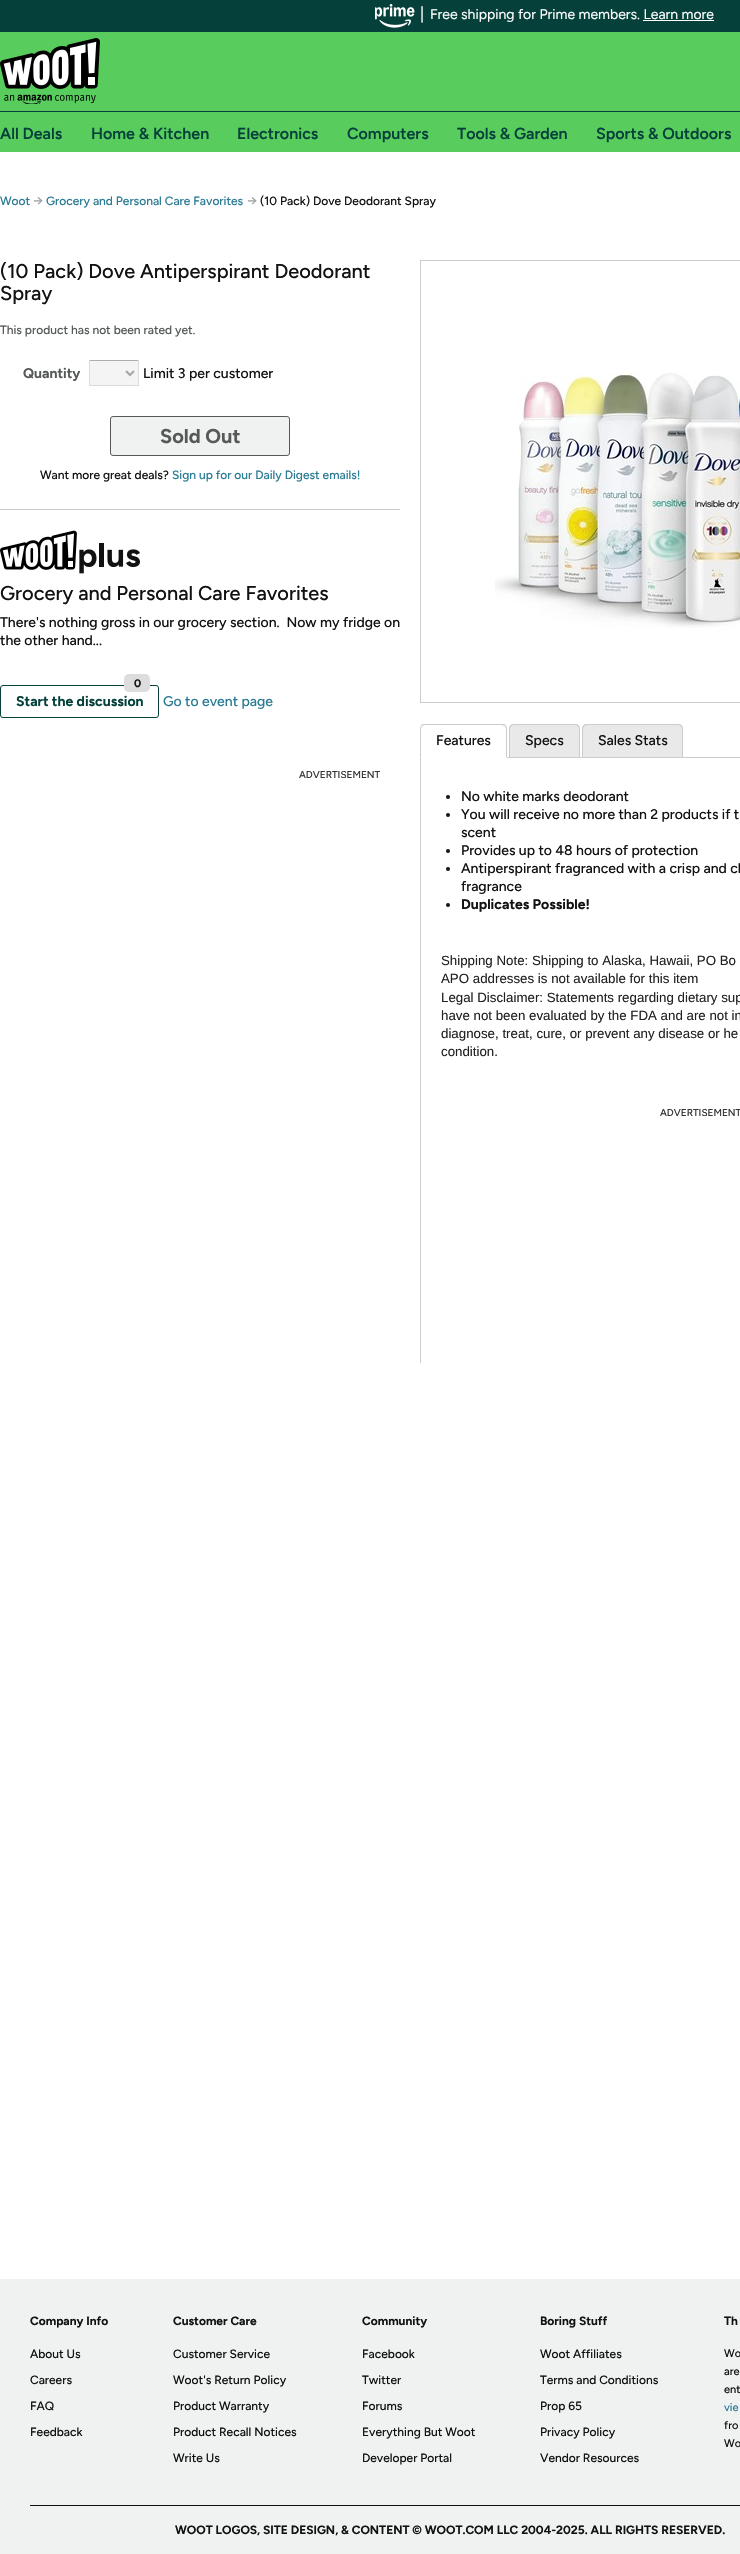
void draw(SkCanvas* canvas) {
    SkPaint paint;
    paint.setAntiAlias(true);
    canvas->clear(0xFFFFFFFF);
    paint.setColor(0xFF05413A);
    canvas->drawRect(SkRect::MakeXYWH(0, 0, 740, 32), paint);
    canvas->drawImageRect(SkImages::DeferredFromEncodedData(SkData::MakeFromFileName("img1.png")), SkRect::MakeXYWH(375, 4, 40, 24), SkSamplingOptions());
    SkFont font1(fontMgr->matchFamilyStyle("Figtree", SkFontStyle::Normal()), 16);
    font1.setSubpixel(true);
    paint.setColor(0xFFFFFFFF);
    canvas->drawString("|", 420, 19, font1, paint);
    SkFont font2(fontMgr->matchFamilyStyle("Figtree", SkFontStyle::Normal()), 14);
    font2.setSubpixel(true);
    canvas->drawString("Free shipping for Prime members. Learn more", 430, 19, font2, paint);
    canvas->drawRect(SkRect::MakeXYWH(643, 20, 71, 1), paint);
    paint.setColor(0xFF58CD5D);
    canvas->drawRect(SkRect::MakeXYWH(0, 32, 740, 120), paint);
    paint.setColor(0xFF05413A);
    canvas->drawRect(SkRect::MakeXYWH(0, 111, 740, 1), paint);
    canvas->drawImageRect(SkImages::DeferredFromEncodedData(SkData::MakeFromFileName("img2.png")), SkRect::MakeXYWH(0, 38, 100, 66), SkSamplingOptions());
    SkFont font3(fontMgr->matchFamilyStyle("Figtree", SkFontStyle(600, SkFontStyle::kNormal_Width, SkFontStyle::kUpright_Slant)), 16);
    font3.setSubpixel(true);
    canvas->drawString("All Deals", 0, 139, font3, paint);
    canvas->drawString("Home & Kitchen", 91, 139, font3, paint);
    canvas->drawString("Electronics", 237, 139, font3, paint);
    canvas->drawString("Computers", 347, 139, font3, paint);
    canvas->drawString("Tools & Garden", 457, 139, font3, paint);
    canvas->drawString("Sports & Outdoors", 596, 139, font3, paint);
    SkFont font4(fontMgr->matchFamilyStyle("Figtree", SkFontStyle(500, SkFontStyle::kNormal_Width, SkFontStyle::kUpright_Slant)), 12);
    font4.setSubpixel(true);
    paint.setColor(0xFF297A94);
    canvas->drawString("Woot", 0, 205, font4, paint);
    SkFont font5(fontMgr->matchFamilyStyle("Figtree", SkFontStyle(500, SkFontStyle::kNormal_Width, SkFontStyle::kUpright_Slant)), 14);
    font5.setSubpixel(true);
    paint.setColor(0xFFA2A6A6);
    canvas->drawString("→", 33, 205, font5, paint);
    paint.setColor(0xFF297A94);
    canvas->drawString("Grocery and Personal Care Favorites", 46, 205, font4, paint);
    paint.setColor(0xFFA2A6A6);
    canvas->drawString("→", 247, 205, font5, paint);
    paint.setColor(0xFF121212);
    canvas->drawString("(10 Pack) Dove Deodorant Spray", 260, 205, font4, paint);
    paint.setColor(0xFFCCCCCC);
    canvas->drawRect(SkRect::MakeXYWH(0, 509, 400, 1), paint);
    SkFont font6(fontMgr->matchFamilyStyle("Figtree", SkFontStyle(500, SkFontStyle::kNormal_Width, SkFontStyle::kUpright_Slant)), 20);
    font6.setSubpixel(true);
    paint.setColor(0xFF121212);
    canvas->drawString("(10 Pack) Dove Antiperspirant Deodorant", 0, 278, font6, paint);
    canvas->drawString("Spray", 0, 300, font6, paint);
    paint.setColor(0xFF565959);
    canvas->drawString("This product has not been rated yet.", 0, 334, font4, paint);
    SkFont font7(fontMgr->matchFamilyStyle("Figtree", SkFontStyle::Bold()), 14);
    font7.setSubpixel(true);
    canvas->drawString("Quantity", 23, 378, font7, paint);
    paint.setColor(0xFFF4F4F4);
    canvas->drawRect(SkRect::MakeXYWH(90, 361, 48, 24), paint);
    paint.setColor(0xFFACACAC);
    canvas->drawRect(SkRect::MakeXYWH(89, 360, 50, 1), paint);
    paint.setColor(0xFFDBDBDB);
    canvas->drawRect(SkRect::MakeXYWH(138, 360, 1, 26), paint);
    canvas->drawRect(SkRect::MakeXYWH(89, 385, 50, 1), paint);
    canvas->drawRect(SkRect::MakeXYWH(89, 360, 1, 26), paint);
    paint.setStyle(SkPaint::kStroke_Style);
    paint.setStrokeWidth(2);
    paint.setColor(0xFFA6A6A6);
    canvas->drawPath(SkPathBuilder().moveTo(126, 371).lineTo(130, 375).lineTo(134, 371).detach(), paint);
    paint.setStyle(SkPaint::kFill_Style);
    paint.setColor(0xFF121212);
    canvas->drawString("Limit 3 per customer", 143, 378, font5, paint);
    paint.setColor(0xFFF0F2F2);
    canvas->drawRoundRect(SkRect::MakeXYWH(110.5f, 416.5f, 179, 39), 2.5f, 2.5f, paint);
    paint.setStyle(SkPaint::kStroke_Style);
    paint.setStrokeWidth(1);
    paint.setColor(0xFF565959);
    canvas->drawRoundRect(SkRect::MakeXYWH(110.5f, 416.5f, 179, 39), 2.5f, 2.5f, paint);
    SkFont font8(fontMgr->matchFamilyStyle("Figtree", SkFontStyle::Bold()), 20);
    font8.setSubpixel(true);
    paint.setStyle(SkPaint::kFill_Style);
    canvas->drawString("Sold Out", 160, 443, font8, paint);
    paint.setColor(0xFF121212);
    canvas->drawString("Want more great deals?", 40, 479, font4, paint);
    paint.setColor(0xFF297A94);
    canvas->drawString("Sign up for our Daily Digest emails!", 172, 479, font4, paint);
    canvas->drawImageRect(SkImages::DeferredFromEncodedData(SkData::MakeFromFileName("img3.png")), SkRect::MakeXYWH(0, 530, 140, 44), SkSamplingOptions());
    paint.setColor(0xFF121212);
    canvas->drawString("Grocery and Personal Care Favorites", 0, 600, font6, paint);
    canvas->drawString("There's nothing gross in our grocery section.  Now my fridge on", 0, 627, font5, paint);
    canvas->drawString("the other hand...", 0, 645, font5, paint);
    paint.setStyle(SkPaint::kStroke_Style);
    paint.setColor(0xFF05413A);
    canvas->drawRoundRect(SkRect::MakeXYWH(0.5f, 685.5f, 158, 32), 2.5f, 2.5f, paint);
    paint.setStyle(SkPaint::kFill_Style);
    paint.setColor(0xFFDDDDDD);
    canvas->drawRoundRect(SkRect::MakeXYWH(124, 674, 26, 18), 5, 5, paint);
    SkFont font9(fontMgr->matchFamilyStyle("Figtree", SkFontStyle::Bold()), 11);
    font9.setSubpixel(true);
    paint.setColor(0xFF121212);
    canvas->drawString("0", 134, 687, font9, paint);
    paint.setColor(0xFF05413A);
    canvas->drawString("Start the discussion", 16, 706, font7, paint);
    paint.setColor(0xFF297A94);
    canvas->drawString("Go to event page", 163, 706, font5, paint);
    SkFont font10(fontMgr->matchFamilyStyle("Figtree", SkFontStyle(500, SkFontStyle::kNormal_Width, SkFontStyle::kUpright_Slant)), 10);
    font10.setSubpixel(true);
    paint.setColor(0xFF333333);
    canvas->drawString("ADVERTISEMENT", 299, 778, font10, paint);
    paint.setStyle(SkPaint::kStroke_Style);
    paint.setColor(0xFFCCCCCC);
    canvas->drawRect(SkRect::MakeXYWH(420.5f, 260.5f, 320, 442), paint);
    canvas->drawImageRect(SkImages::DeferredFromEncodedData(SkData::MakeFromFileName("img4.png")), SkRect::MakeXYWH(495, 373, 245, 255), SkSamplingOptions());
    paint.setStyle(SkPaint::kFill_Style);
    canvas->drawRect(SkRect::MakeXYWH(507, 757, 233, 1), paint);
    canvas->drawPath(SkPathBuilder().moveTo(425, 724).cubicTo(424, 724, 422, 724, 421, 725).lineTo(422, 726).lineTo(425, 725).lineTo(502, 725).lineTo(505, 726).lineTo(506, 725).cubicTo(505, 724, 504, 724, 502, 724).close().detach(), paint);
    canvas->drawPath(SkPathBuilder().moveTo(507, 758).lineTo(507, 729).cubicTo(507, 727.5f, 506.5f, 726, 505.5f, 725.5f).lineTo(505, 726).cubicTo(505.5f, 727, 506, 728, 506, 729).lineTo(506, 757).close().detach(), paint);
    paint.setColor(0xFFFFFFFF);
    canvas->drawPath(SkPathBuilder().moveTo(507, 758).lineTo(506, 757).lineTo(421, 757).lineTo(420, 758).close().detach(), paint);
    paint.setColor(0xFFCCCCCC);
    canvas->drawPath(SkPathBuilder().moveTo(420, 758).lineTo(421, 757).lineTo(421, 729).cubicTo(421, 728, 421.5f, 727, 422, 726).lineTo(421.5f, 725.5f).cubicTo(420.5f, 726, 420, 727.5f, 420, 729).close().detach(), paint);
    paint.setColor(0xFF121212);
    canvas->drawString("Features", 436, 745, font5, paint);
    paint.setColor(0xFFE9E9E9);
    canvas->drawPath(SkPathBuilder().moveTo(514, 724).lineTo(575, 724).cubicTo(578, 724, 580, 726, 580, 729).lineTo(580, 757).lineTo(509, 757).lineTo(509, 729).cubicTo(509, 726, 511, 724, 514, 724).close().detach(), paint);
    paint.setColor(0xFFCCCCCC);
    canvas->drawPath(SkPathBuilder(SkPathFillType::kEvenOdd).moveTo(514, 724).lineTo(575, 724).cubicTo(578, 724, 580, 726, 580, 729).lineTo(580, 757).lineTo(509, 757).lineTo(509, 729).cubicTo(509, 726, 511, 724, 514, 724).close().moveTo(514, 725).lineTo(575, 725).cubicTo(577, 725, 579, 727, 579, 729).lineTo(579, 757).lineTo(510, 757).lineTo(510, 729).cubicTo(510, 727, 512, 725, 514, 725).close().detach(), paint);
    paint.setColor(0xFF121212);
    canvas->drawString("Specs", 525, 745, font5, paint);
    paint.setColor(0xFFE9E9E9);
    canvas->drawPath(SkPathBuilder().moveTo(587, 724).lineTo(678, 724).cubicTo(681, 724, 683, 726, 683, 729).lineTo(683, 757).lineTo(582, 757).lineTo(582, 729).cubicTo(582, 726, 584, 724, 587, 724).close().detach(), paint);
    paint.setColor(0xFFCCCCCC);
    canvas->drawPath(SkPathBuilder(SkPathFillType::kEvenOdd).moveTo(587, 724).lineTo(678, 724).cubicTo(681, 724, 683, 726, 683, 729).lineTo(683, 757).lineTo(582, 757).lineTo(582, 729).cubicTo(582, 726, 584, 724, 587, 724).close().moveTo(587, 725).lineTo(678, 725).cubicTo(680, 725, 682, 727, 682, 729).lineTo(682, 757).lineTo(583, 757).lineTo(583, 729).cubicTo(583, 727, 585, 725, 587, 725).close().detach(), paint);
    paint.setColor(0xFF121212);
    canvas->drawString("Sales Stats", 598, 745, font5, paint);
    paint.setColor(0xFFCCCCCC);
    canvas->drawRect(SkRect::MakeXYWH(420, 758, 1, 605), paint);
    paint.setColor(0xFF121212);
    canvas->drawCircle(448, 797, 2, paint);
    canvas->drawString("No white marks deodorant", 461, 801, font5, paint);
    canvas->drawCircle(448, 815, 2, paint);
    canvas->drawString("You will receive no more than 2 products if t", 461, 819, font5, paint);
    canvas->drawString("scent", 461, 837, font5, paint);
    canvas->drawCircle(448, 851, 2, paint);
    canvas->drawString("Provides up to 48 hours of protection", 461, 855, font5, paint);
    canvas->drawCircle(448, 869, 2, paint);
    canvas->drawString("Antiperspirant fragranced with a crisp and cl", 461, 873, font5, paint);
    canvas->drawString("fragrance", 461, 891, font5, paint);
    canvas->drawCircle(448, 905, 2, paint);
    canvas->drawString("Duplicates Possible!", 461, 909, font7, paint);
    SkFont font11(fontMgr->matchFamilyStyle("Liberation Sans", SkFontStyle::Normal()), 13.3f);
    font11.setSubpixel(true);
    paint.setColor(0xFF222222);
    canvas->drawString("Shipping Note: Shipping to Alaska, Hawaii, PO Bo", 441, 965, font11, paint);
    canvas->drawString("APO addresses is not available for this item", 441, 983, font11, paint);
    canvas->drawString("Legal Disclaimer: Statements regarding dietary sup", 441, 1002, font11, paint);
    canvas->drawString("have not been evaluated by the FDA and are not in", 441, 1020, font11, paint);
    canvas->drawString("diagnose, treat, cure, or prevent any disease or he", 441, 1038, font11, paint);
    canvas->drawString("condition.", 441, 1056, font11, paint);
    paint.setColor(0xFF333333);
    canvas->drawString("ADVERTISEMENT", 660, 1116, font10, paint);
    paint.setColor(0xFFF0F2F2);
    canvas->drawRect(SkRect::MakeXYWH(0, 2279, 740, 275), paint);
    paint.setColor(0xFF121212);
    canvas->drawRect(SkRect::MakeXYWH(30, 2505, 710, 1), paint);
    SkFont font12(fontMgr->matchFamilyStyle("Figtree", SkFontStyle::Bold()), 12);
    font12.setSubpixel(true);
    canvas->drawString("Company Info", 30, 2325, font12, paint);
    canvas->drawString("About Us", 30, 2358, font4, paint);
    canvas->drawString("Careers", 30, 2384, font4, paint);
    canvas->drawString("FAQ", 30, 2410, font4, paint);
    canvas->drawString("Feedback", 30, 2436, font4, paint);
    canvas->drawString("Customer Care", 173, 2325, font12, paint);
    canvas->drawString("Customer Service", 173, 2358, font4, paint);
    canvas->drawString("Woot's Return Policy", 173, 2384, font4, paint);
    canvas->drawString("Product Warranty", 173, 2410, font4, paint);
    canvas->drawString("Product Recall Notices", 173, 2436, font4, paint);
    canvas->drawString("Write Us", 173, 2462, font4, paint);
    canvas->drawString("Community", 362, 2325, font12, paint);
    canvas->drawString("Facebook", 362, 2358, font4, paint);
    canvas->drawString("Twitter", 362, 2384, font4, paint);
    canvas->drawString("Forums", 362, 2410, font4, paint);
    canvas->drawString("Everything But Woot", 362, 2436, font4, paint);
    canvas->drawString("Developer Portal", 362, 2462, font4, paint);
    canvas->drawString("Boring Stuff", 540, 2325, font12, paint);
    canvas->drawString("Woot Affiliates", 540, 2358, font4, paint);
    canvas->drawString("Terms and Conditions", 540, 2384, font4, paint);
    canvas->drawString("Prop 65", 540, 2410, font4, paint);
    canvas->drawString("Privacy Policy", 540, 2436, font4, paint);
    canvas->drawString("Vendor Resources", 540, 2462, font4, paint);
    canvas->drawString("Th", 724, 2325, font12, paint);
    SkFont font13(fontMgr->matchFamilyStyle("Figtree", SkFontStyle(500, SkFontStyle::kNormal_Width, SkFontStyle::kUpright_Slant)), 11);
    font13.setSubpixel(true);
    canvas->drawString("Wo", 724, 2357, font13, paint);
    canvas->drawString("are", 724, 2375, font13, paint);
    canvas->drawString("ent", 724, 2393, font13, paint);
    paint.setColor(0xFF297A94);
    canvas->drawString("vie", 724, 2411, font13, paint);
    paint.setColor(0xFF121212);
    canvas->drawString("fro", 724, 2429, font13, paint);
    canvas->drawString("Wo", 724, 2447, font13, paint);
    canvas->drawString("WOOT LOGOS, SITE DESIGN, & CONTENT © WOOT.COM LLC 2004-2025. ALL RIGHTS RESERVED.", 175, 2534, font12, paint);
}
